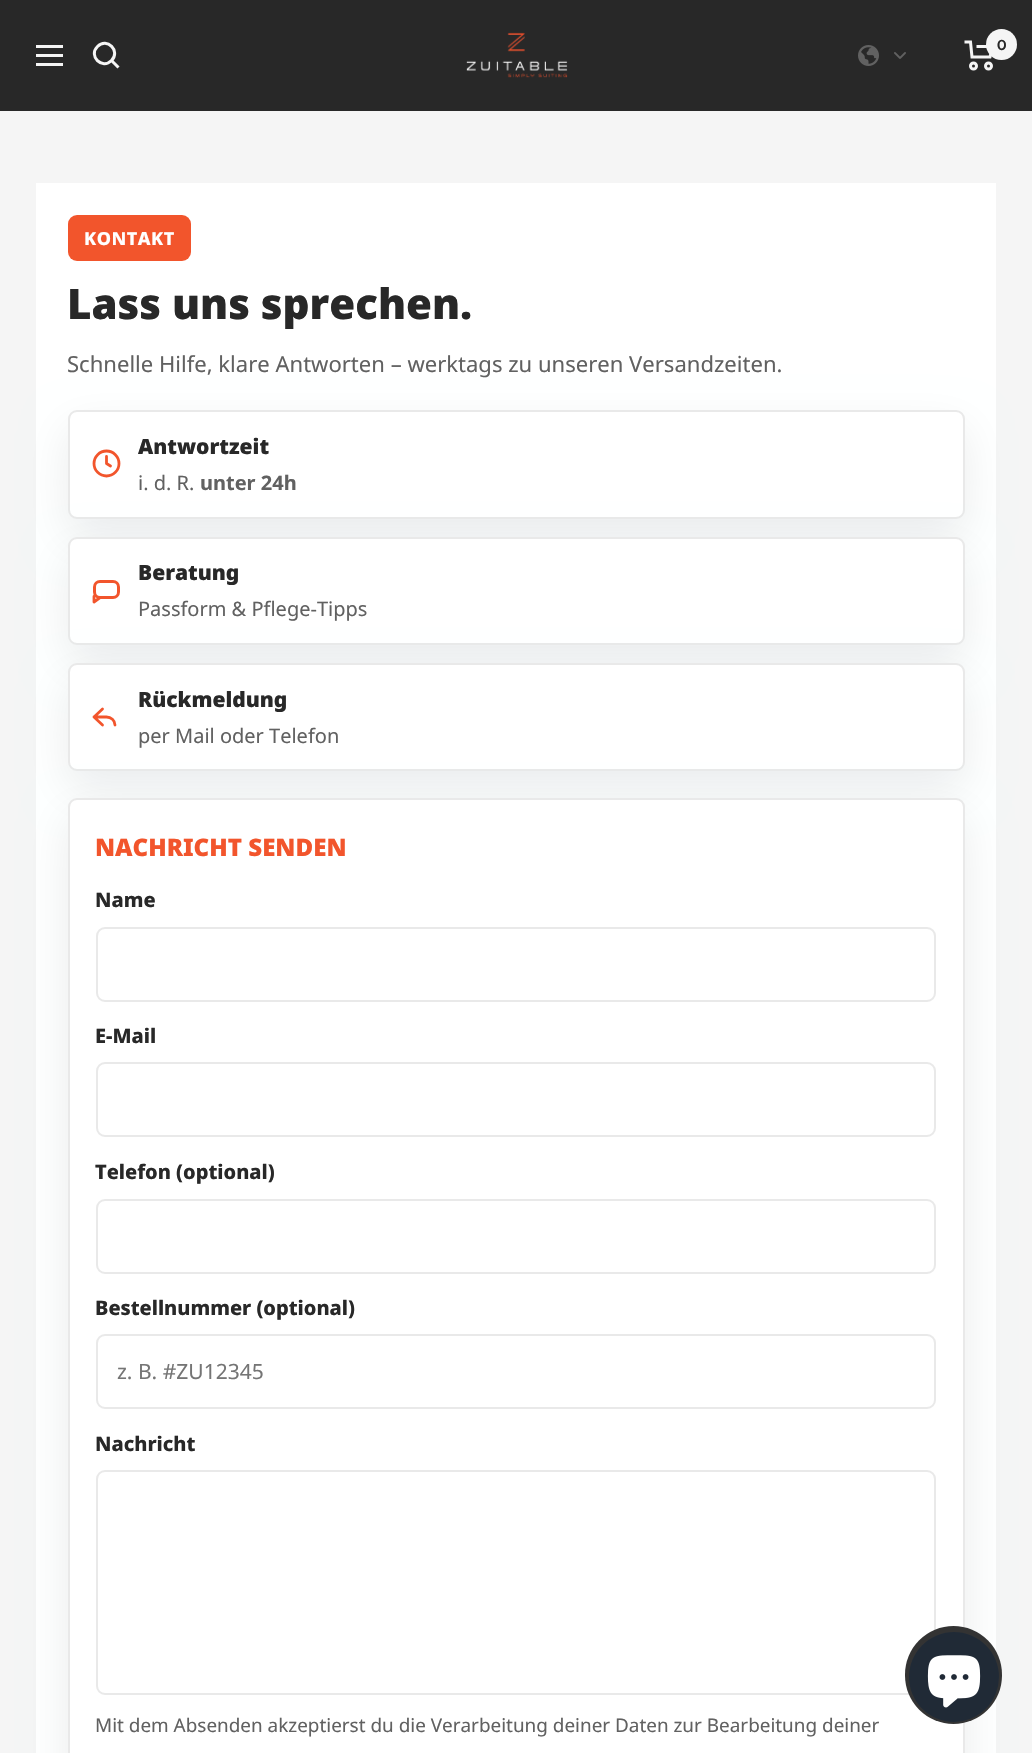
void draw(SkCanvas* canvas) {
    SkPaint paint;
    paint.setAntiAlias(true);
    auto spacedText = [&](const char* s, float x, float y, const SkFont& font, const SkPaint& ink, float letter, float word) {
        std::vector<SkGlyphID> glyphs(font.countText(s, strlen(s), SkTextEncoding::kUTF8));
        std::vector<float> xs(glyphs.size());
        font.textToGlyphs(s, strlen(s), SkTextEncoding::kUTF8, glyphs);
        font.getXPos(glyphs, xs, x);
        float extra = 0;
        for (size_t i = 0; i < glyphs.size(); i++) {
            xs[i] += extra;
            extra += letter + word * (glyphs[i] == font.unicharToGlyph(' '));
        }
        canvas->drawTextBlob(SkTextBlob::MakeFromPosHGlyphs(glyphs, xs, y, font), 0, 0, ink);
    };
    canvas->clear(0xFFF5F5F5);
    paint.setColor(0xFF282828);
    canvas->drawRect(SkRect::MakeXYWH(0, 0, 1032, 111), paint);
    paint.setStyle(SkPaint::kStroke_Style);
    paint.setStrokeWidth(3);
    paint.setColor(0xFFF5F5F5);
    canvas->drawPath(SkPathBuilder().moveTo(36, 46.5f).lineTo(63, 46.5f).moveTo(36, 64.5f).lineTo(63, 64.5f).close().moveTo(36, 55.5f).lineTo(63, 55.5f).close().detach(), paint);
    canvas->drawPath(SkPathBuilder().moveTo(111.5f, 60.5f).cubicTo(121, 51, 107, 37, 97.5f, 46.5f).cubicTo(88, 56, 102, 70, 111.5f, 60.5f).close().moveTo(111.5f, 60.5f).lineTo(118.5f, 67.5f).detach(), paint);
    canvas->drawImageRect(SkImages::DeferredFromEncodedData(SkData::MakeFromFileName("img1.png")), SkRect::MakeXYWH(466, 32, 102, 46), SkSamplingOptions());
    canvas->drawImageRect(SkImages::DeferredFromEncodedData(SkData::MakeFromFileName("img2.png")), SkRect::MakeXYWH(858, 45, 21, 21), SkSamplingOptions());
    canvas->drawImageRect(SkImages::DeferredFromEncodedData(SkData::MakeFromFileName("img3.png")), SkRect::MakeXYWH(894, 52, 12, 7), SkSamplingOptions());
    canvas->drawPath(SkPathBuilder().moveTo(964.5f, 42).lineTo(970.5f, 42).lineTo(972, 57).lineTo(990, 57).lineTo(993, 46.5f).lineTo(976.5f, 46.5f).detach(), paint);
    canvas->drawCircle(973.5f, 66, 3, paint);
    canvas->drawCircle(988.5f, 66, 3, paint);
    paint.setStyle(SkPaint::kFill_Style);
    canvas->drawCircle(1001.5f, 44.5f, 15.5f, paint);
    SkFont font1(fontMgr->matchFamilyStyle("Instrument Sans", SkFontStyle(600, SkFontStyle::kNormal_Width, SkFontStyle::kUpright_Slant)), 14);
    font1.setSubpixel(true);
    paint.setColor(0xFF282828);
    canvas->drawString("0", 997, 50, font1, paint);
    paint.setColor(0xFFFFFFFF);
    canvas->drawRect(SkRect::MakeXYWH(36, 183, 960, 1570), paint);
    paint.setColor(0xFFF2552C);
    canvas->drawRoundRect(SkRect::MakeXYWH(68, 215, 123, 46), 9, 9, paint);
    SkFont font2(fontMgr->matchFamilyStyle("Noto Sans", SkFontStyle(800, SkFontStyle::kNormal_Width, SkFontStyle::kUpright_Slant)), 18);
    font2.setSubpixel(true);
    paint.setColor(0xFFFFFFFF);
    spacedText("KONTAKT", 84, 245, font2, paint, 0.5f, 0);
    SkFont font3(fontMgr->matchFamilyStyle("Noto Sans", SkFontStyle(900, SkFontStyle::kNormal_Width, SkFontStyle::kUpright_Slant)), 42);
    font3.setSubpixel(true);
    paint.setColor(0xFF282828);
    canvas->drawString("Lass uns sprechen.", 67, 319, font3, paint);
    SkFont font4(fontMgr->matchFamilyStyle("Noto Sans", SkFontStyle::Normal()), 22.05f);
    font4.setSubpixel(true);
    paint.setColor(0xFF616161);
    canvas->drawString("Schnelle Hilfe, klare Antworten – werktags zu unseren Versandzeiten.", 67, 372, font4, paint);
    paint.setColor(0x14020817);
    paint.setMaskFilter(SkMaskFilter::MakeBlur(kNormal_SkBlurStyle, 22.5f));
    canvas->drawRoundRect(SkRect::MakeXYWH(68, 428, 897, 109), 9, 9, paint);
    paint.setMaskFilter(nullptr);
    paint.setColor(0xFFFFFFFF);
    canvas->drawRoundRect(SkRect::MakeXYWH(69, 411, 895, 107), 8, 8, paint);
    paint.setStyle(SkPaint::kStroke_Style);
    paint.setStrokeWidth(2);
    paint.setColor(0xFFE9E9E9);
    canvas->drawRoundRect(SkRect::MakeXYWH(69, 411, 895, 107), 8, 8, paint);
    paint.setStrokeWidth(2.8f);
    paint.setColor(0xFFF2552C);
    canvas->drawCircle(106.5f, 463.5f, 12.5f, paint);
    paint.setStrokeCap(SkPaint::kRound_Cap);
    paint.setStrokeJoin(SkPaint::kRound_Join);
    canvas->drawPath(SkPathBuilder().moveTo(106.5f, 456.5f).lineTo(106.5f, 463.5f).lineTo(110.5f, 466).detach(), paint);
    SkFont font5(fontMgr->matchFamilyStyle("Noto Sans", SkFontStyle(900, SkFontStyle::kNormal_Width, SkFontStyle::kUpright_Slant)), 21);
    font5.setSubpixel(true);
    paint.setStyle(SkPaint::kFill_Style);
    paint.setColor(0xFF282828);
    canvas->drawString("Antwortzeit", 138, 454, font5, paint);
    SkFont font6(fontMgr->matchFamilyStyle("Noto Sans", SkFontStyle::Normal()), 20);
    font6.setSubpixel(true);
    paint.setColor(0xFF616161);
    canvas->drawString("i. d. R.", 138, 490, font6, paint);
    SkFont font7(fontMgr->matchFamilyStyle("Noto Sans", SkFontStyle::Bold()), 20);
    font7.setSubpixel(true);
    canvas->drawString("unter 24h", 200, 490, font7, paint);
    paint.setColor(0x14020817);
    paint.setMaskFilter(SkMaskFilter::MakeBlur(kNormal_SkBlurStyle, 22.5f));
    canvas->drawRoundRect(SkRect::MakeXYWH(68, 555, 897, 108), 9, 9, paint);
    paint.setMaskFilter(nullptr);
    paint.setColor(0xFFFFFFFF);
    canvas->drawRoundRect(SkRect::MakeXYWH(69, 538, 895, 106), 8, 8, paint);
    paint.setStyle(SkPaint::kStroke_Style);
    paint.setStrokeWidth(2);
    paint.setStrokeCap(SkPaint::kButt_Cap);
    paint.setStrokeJoin(SkPaint::kMiter_Join);
    paint.setColor(0xFFE9E9E9);
    canvas->drawRoundRect(SkRect::MakeXYWH(69, 538, 895, 106), 8, 8, paint);
    paint.setStrokeWidth(2.8f);
    paint.setStrokeCap(SkPaint::kRound_Cap);
    paint.setStrokeJoin(SkPaint::kRound_Join);
    paint.setColor(0xFFF2552C);
    canvas->drawPath(SkPathBuilder().moveTo(99.5f, 598).lineTo(94, 602).lineTo(94, 596.5f).detach(), paint);
    paint.setStrokeWidth(3);
    paint.setStrokeCap(SkPaint::kButt_Cap);
    paint.setStrokeJoin(SkPaint::kMiter_Join);
    canvas->drawRoundRect(SkRect::MakeXYWH(94.5f, 581.5f, 24, 16), 5.5f, 5.5f, paint);
    paint.setStyle(SkPaint::kFill_Style);
    paint.setColor(0xFF282828);
    canvas->drawString("Beratung", 138, 580, font5, paint);
    paint.setColor(0xFF616161);
    canvas->drawString("Passform & Pflege-Tipps", 138, 616, font6, paint);
    paint.setColor(0x14020817);
    paint.setMaskFilter(SkMaskFilter::MakeBlur(kNormal_SkBlurStyle, 22.5f));
    canvas->drawRoundRect(SkRect::MakeXYWH(68, 681, 897, 108), 9, 9, paint);
    paint.setMaskFilter(nullptr);
    paint.setColor(0xFFFFFFFF);
    canvas->drawRoundRect(SkRect::MakeXYWH(69, 664, 895, 106), 8, 8, paint);
    paint.setStyle(SkPaint::kStroke_Style);
    paint.setStrokeWidth(2);
    paint.setColor(0xFFE9E9E9);
    canvas->drawRoundRect(SkRect::MakeXYWH(69, 664, 895, 106), 8, 8, paint);
    paint.setStrokeWidth(2.8f);
    paint.setStrokeCap(SkPaint::kRound_Cap);
    paint.setStrokeJoin(SkPaint::kRound_Join);
    paint.setColor(0xFFF2552C);
    canvas->drawPath(SkPathBuilder().moveTo(102.5f, 709).lineTo(94, 717).lineTo(102.5f, 725).moveTo(94, 717).lineTo(106.5f, 717).cubicTo(111, 717, 115, 720.5f, 115, 725).detach(), paint);
    paint.setStyle(SkPaint::kFill_Style);
    paint.setColor(0xFF282828);
    canvas->drawString("Rückmeldung", 138, 707, font5, paint);
    paint.setColor(0xFF616161);
    canvas->drawString("per Mail oder Telefon", 138, 743, font6, paint);
    paint.setColor(0x14020817);
    paint.setMaskFilter(SkMaskFilter::MakeBlur(kNormal_SkBlurStyle, 22.5f));
    canvas->drawRoundRect(SkRect::MakeXYWH(68, 816, 897, 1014), 9, 9, paint);
    paint.setMaskFilter(nullptr);
    paint.setColor(0xFFFFFFFF);
    canvas->drawRoundRect(SkRect::MakeXYWH(69, 799, 895, 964), 8, 8, paint);
    paint.setStyle(SkPaint::kStroke_Style);
    paint.setStrokeWidth(2);
    paint.setStrokeCap(SkPaint::kButt_Cap);
    paint.setStrokeJoin(SkPaint::kMiter_Join);
    paint.setColor(0xFFE9E9E9);
    canvas->drawRoundRect(SkRect::MakeXYWH(69, 799, 895, 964), 8, 8, paint);
    SkFont font8(fontMgr->matchFamilyStyle("Noto Sans", SkFontStyle(900, SkFontStyle::kNormal_Width, SkFontStyle::kUpright_Slant)), 24.1f);
    font8.setSubpixel(true);
    paint.setStyle(SkPaint::kFill_Style);
    paint.setColor(0xFFF2552C);
    canvas->drawString("NACHRICHT SENDEN", 95, 856, font8, paint);
    SkFont font9(fontMgr->matchFamilyStyle("Noto Sans", SkFontStyle(800, SkFontStyle::kNormal_Width, SkFontStyle::kUpright_Slant)), 20);
    font9.setSubpixel(true);
    paint.setColor(0xFF282828);
    canvas->drawString("Name", 95, 907, font9, paint);
    paint.setStyle(SkPaint::kStroke_Style);
    paint.setColor(0xFFE9E9E9);
    canvas->drawRoundRect(SkRect::MakeXYWH(97, 928, 838, 73), 8, 8, paint);
    paint.setStyle(SkPaint::kFill_Style);
    paint.setColor(0xFF282828);
    canvas->drawString("E-Mail", 95, 1043, font9, paint);
    paint.setStyle(SkPaint::kStroke_Style);
    paint.setColor(0xFFE9E9E9);
    canvas->drawRoundRect(SkRect::MakeXYWH(97, 1063, 838, 73), 8, 8, paint);
    paint.setStyle(SkPaint::kFill_Style);
    paint.setColor(0xFF282828);
    canvas->drawString("Telefon (optional)", 95, 1179, font9, paint);
    paint.setStyle(SkPaint::kStroke_Style);
    paint.setColor(0xFFE9E9E9);
    canvas->drawRoundRect(SkRect::MakeXYWH(97, 1200, 838, 73), 8, 8, paint);
    paint.setStyle(SkPaint::kFill_Style);
    paint.setColor(0xFF282828);
    canvas->drawString("Bestellnummer (optional)", 95, 1315, font9, paint);
    paint.setStyle(SkPaint::kStroke_Style);
    paint.setColor(0xFFE9E9E9);
    canvas->drawRoundRect(SkRect::MakeXYWH(97, 1335, 838, 73), 8, 8, paint);
    SkFont font10(fontMgr->matchFamilyStyle("Noto Sans", SkFontStyle::Normal()), 21);
    font10.setSubpixel(true);
    paint.setStyle(SkPaint::kFill_Style);
    paint.setColor(0xFF757575);
    canvas->drawString("z. B. #ZU12345", 117, 1379, font10, paint);
    paint.setColor(0xFF282828);
    canvas->drawString("Nachricht", 95, 1451, font9, paint);
    paint.setStyle(SkPaint::kStroke_Style);
    paint.setColor(0xFFE9E9E9);
    canvas->drawRoundRect(SkRect::MakeXYWH(97, 1471, 838, 223), 8, 8, paint);
    SkFont font11(fontMgr->matchFamilyStyle("Noto Sans", SkFontStyle::Normal()), 18.9f);
    font11.setSubpixel(true);
    paint.setStyle(SkPaint::kFill_Style);
    paint.setColor(0xFF616161);
    canvas->drawString("Mit dem Absenden akzeptierst du die Verarbeitung deiner Daten zur Bearbeitung deiner", 95, 1732, font11, paint);
    paint.setColor(0xFF333333);
    canvas->drawRoundRect(SkRect::MakeXYWH(905, 1626, 97, 98), 48.5f, 48.5f, paint);
    paint.setColor(0xFF202A36);
    canvas->drawCircle(954, 1677, 45, paint);
    canvas->drawImageRect(SkImages::DeferredFromEncodedData(SkData::MakeFromFileName("img4.png")), SkRect::MakeXYWH(927, 1655, 54, 53), SkSamplingOptions());
}
